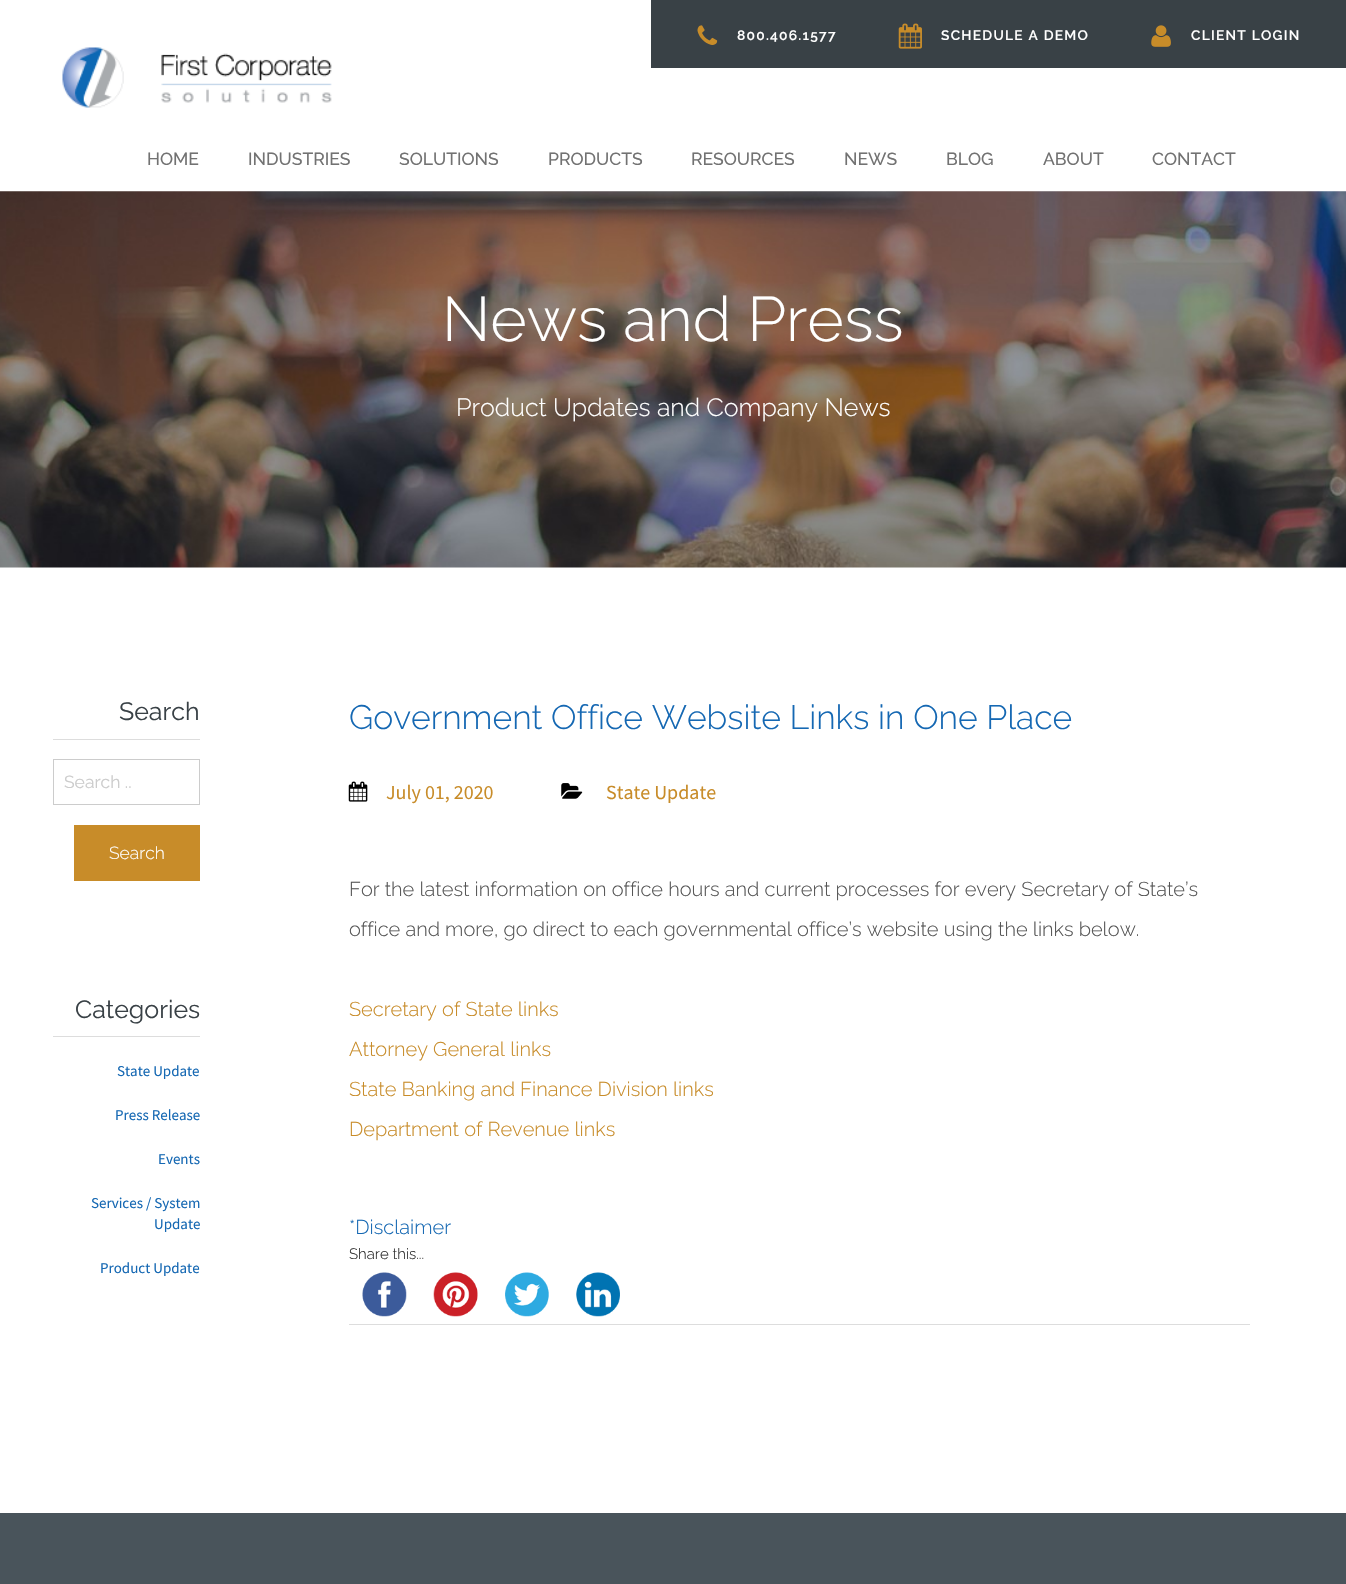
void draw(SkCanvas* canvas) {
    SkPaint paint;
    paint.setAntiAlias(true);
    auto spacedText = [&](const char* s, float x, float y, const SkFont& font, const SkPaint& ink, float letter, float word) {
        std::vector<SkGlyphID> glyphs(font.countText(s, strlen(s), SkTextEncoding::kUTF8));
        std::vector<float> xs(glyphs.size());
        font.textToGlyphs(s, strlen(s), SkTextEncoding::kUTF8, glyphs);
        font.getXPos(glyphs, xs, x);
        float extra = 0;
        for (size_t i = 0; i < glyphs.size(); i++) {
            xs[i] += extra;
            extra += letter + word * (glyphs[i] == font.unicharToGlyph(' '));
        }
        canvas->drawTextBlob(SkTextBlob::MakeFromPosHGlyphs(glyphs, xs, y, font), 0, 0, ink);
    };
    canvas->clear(0xFFFFFFFF);
    paint.setColor(0xFF394146);
    canvas->drawRect(SkRect::MakeXYWH(651, 0, 695, 68), paint);
    canvas->drawImageRect(SkImages::DeferredFromEncodedData(SkData::MakeFromFileName("img1.png")), SkRect::MakeXYWH(697, 25, 21, 20), SkSamplingOptions());
    SkFont font1(fontMgr->matchFamilyStyle("Raleway", SkFontStyle(600, SkFontStyle::kNormal_Width, SkFontStyle::kUpright_Slant)), 13.75f);
    font1.setSubpixel(true);
    paint.setColor(0xFFFFFFFF);
    spacedText("800.406.1577", 737, 40, font1, paint, 1.25f, 0);
    canvas->drawImageRect(SkImages::DeferredFromEncodedData(SkData::MakeFromFileName("img2.png")), SkRect::MakeXYWH(898, 23, 24, 26), SkSamplingOptions());
    spacedText("SCHEDULE A DEMO", 941, 40, font1, paint, 1.25f, 0);
    canvas->drawImageRect(SkImages::DeferredFromEncodedData(SkData::MakeFromFileName("img3.png")), SkRect::MakeXYWH(1151, 25, 20, 22), SkSamplingOptions());
    spacedText("CLIENT LOGIN", 1191, 40, font1, paint, 1.25f, 0);
    canvas->drawImageRect(SkImages::DeferredFromEncodedData(SkData::MakeFromFileName("img4.png")), SkRect::MakeXYWH(62, 47, 270, 61), SkSamplingOptions());
    SkFont font2(fontMgr->matchFamilyStyle("Raleway", SkFontStyle(500, SkFontStyle::kNormal_Width, SkFontStyle::kUpright_Slant)), 17.5f);
    font2.setSubpixel(true);
    paint.setColor(0xFF727272);
    canvas->drawString("HOME", 147, 165, font2, paint);
    canvas->drawString("INDUSTRIES", 248, 165, font2, paint);
    canvas->drawString("SOLUTIONS", 399, 165, font2, paint);
    canvas->drawString("PRODUCTS", 548, 165, font2, paint);
    canvas->drawString("RESOURCES", 691, 165, font2, paint);
    canvas->drawString("NEWS", 844, 165, font2, paint);
    canvas->drawString("BLOG", 946, 165, font2, paint);
    canvas->drawString("ABOUT", 1043, 165, font2, paint);
    canvas->drawString("CONTACT", 1152, 165, font2, paint);
    canvas->drawImageRect(SkImages::DeferredFromEncodedData(SkData::MakeFromFileName("img5.png")), SkRect::MakeXYWH(0, 191, 1346, 377), SkSamplingOptions());
    SkFont font3(fontMgr->matchFamilyStyle("Raleway", SkFontStyle(300, SkFontStyle::kNormal_Width, SkFontStyle::kUpright_Slant)), 62.5f);
    font3.setSubpixel(true);
    paint.setColor(0xFFFFFFFF);
    canvas->drawString("News and Press", 442, 341, font3, paint);
    SkFont font4(fontMgr->matchFamilyStyle("Raleway", SkFontStyle(300, SkFontStyle::kNormal_Width, SkFontStyle::kUpright_Slant)), 25);
    font4.setSubpixel(true);
    canvas->drawString("Product Updates and Company News", 456, 416, font4, paint);
    SkFont font5(fontMgr->matchFamilyStyle("Raleway", SkFontStyle::Normal()), 25);
    font5.setSubpixel(true);
    paint.setColor(0xFF394146);
    canvas->drawString("Search", 119, 720, font5, paint);
    paint.setColor(0xFFDDDDDD);
    canvas->drawRect(SkRect::MakeXYWH(53, 739, 147, 1), paint);
    paint.setStyle(SkPaint::kStroke_Style);
    paint.setStrokeWidth(1);
    paint.setColor(0xFFCCCCCC);
    canvas->drawRect(SkRect::MakeXYWH(53.5f, 759.5f, 146, 45), paint);
    SkFont font6(fontMgr->matchFamilyStyle("Raleway", SkFontStyle::Normal()), 17.5f);
    font6.setSubpixel(true);
    paint.setStyle(SkPaint::kFill_Style);
    canvas->drawString("Search ..", 64, 788, font6, paint);
    paint.setColor(0xFFC88C29);
    canvas->drawRect(SkRect::MakeXYWH(74, 825, 126, 56), paint);
    SkFont font7(fontMgr->matchFamilyStyle("Raleway", SkFontStyle(300, SkFontStyle::kNormal_Width, SkFontStyle::kUpright_Slant)), 17.5f);
    font7.setSubpixel(true);
    paint.setColor(0xFFFFFFFF);
    canvas->drawString("Search", 109, 859, font7, paint);
    paint.setColor(0xFF394146);
    canvas->drawString("Categories", 75, 1018, font5, paint);
    paint.setColor(0xFFDDDDDD);
    canvas->drawRect(SkRect::MakeXYWH(53, 1036, 147, 1), paint);
    SkFont font8(fontMgr->matchFamilyStyle("Source Sans Pro", SkFontStyle::Normal()), 15);
    font8.setSubpixel(true);
    paint.setColor(0xFF1568B3);
    canvas->drawString("State Update", 117, 1076, font8, paint);
    canvas->drawString("Press Release", 115, 1120, font8, paint);
    canvas->drawString("Events", 158, 1164, font8, paint);
    canvas->drawString("Services / System", 91, 1208, font8, paint);
    canvas->drawString("Update", 154, 1229, font8, paint);
    canvas->drawString("Product Update", 100, 1273, font8, paint);
    SkFont font9(fontMgr->matchFamilyStyle("Raleway", SkFontStyle(300, SkFontStyle::kNormal_Width, SkFontStyle::kUpright_Slant)), 33.75f);
    font9.setSubpixel(true);
    canvas->drawString("Government Office Website Links in One Place", 349, 729, font9, paint);
    canvas->drawImageRect(SkImages::DeferredFromEncodedData(SkData::MakeFromFileName("img6.png")), SkRect::MakeXYWH(348, 781, 20, 21), SkSamplingOptions());
    SkFont font10(fontMgr->matchFamilyStyle("Source Sans Pro", SkFontStyle::Normal()), 20);
    font10.setSubpixel(true);
    paint.setColor(0xFFC88C29);
    canvas->drawString("July 01, 2020", 386, 799, font10, paint);
    canvas->drawImageRect(SkImages::DeferredFromEncodedData(SkData::MakeFromFileName("img7.png")), SkRect::MakeXYWH(561, 783, 22, 16), SkSamplingOptions());
    canvas->drawString("State Update", 606, 799, font10, paint);
    SkFont font11(fontMgr->matchFamilyStyle("Raleway", SkFontStyle(300, SkFontStyle::kNormal_Width, SkFontStyle::kUpright_Slant)), 20);
    font11.setSubpixel(true);
    paint.setColor(0xFF555555);
    canvas->drawString("For the latest information on office hours and current processes for every Secretary of State’s", 349, 896, font11, paint);
    canvas->drawString("office and more, go direct to each governmental office’s website using the links below.", 349, 936, font11, paint);
    paint.setColor(0xFFC88C29);
    canvas->drawString("Secretary of State links", 349, 1016, font11, paint);
    canvas->drawString("Attorney General links", 349, 1056, font11, paint);
    canvas->drawString("State Banking and Finance Division links", 349, 1096, font11, paint);
    canvas->drawString("Department of Revenue links", 349, 1136, font11, paint);
    paint.setColor(0xFF1568B3);
    canvas->drawString("*Disclaimer", 349, 1234, font11, paint);
    SkFont font12(fontMgr->matchFamilyStyle("Raleway", SkFontStyle(300, SkFontStyle::kNormal_Width, SkFontStyle::kUpright_Slant)), 15);
    font12.setSubpixel(true);
    paint.setColor(0xFF272727);
    canvas->drawString("Share this...", 349, 1259, font12, paint);
    canvas->drawImageRect(SkImages::DeferredFromEncodedData(SkData::MakeFromFileName("img8.png")), SkRect::MakeXYWH(362, 1272, 45, 45), SkSamplingOptions());
    canvas->drawImageRect(SkImages::DeferredFromEncodedData(SkData::MakeFromFileName("img9.png")), SkRect::MakeXYWH(433, 1272, 45, 45), SkSamplingOptions());
    canvas->drawImageRect(SkImages::DeferredFromEncodedData(SkData::MakeFromFileName("img10.png")), SkRect::MakeXYWH(505, 1272, 44, 45), SkSamplingOptions());
    canvas->drawImageRect(SkImages::DeferredFromEncodedData(SkData::MakeFromFileName("img11.png")), SkRect::MakeXYWH(576, 1272, 44, 45), SkSamplingOptions());
    paint.setColor(0xFFDDDDDD);
    canvas->drawRect(SkRect::MakeXYWH(349, 1324, 901, 1), paint);
    paint.setColor(0xFF49545B);
    canvas->drawRect(SkRect::MakeXYWH(0, 1513, 1346, 71), paint);
}
